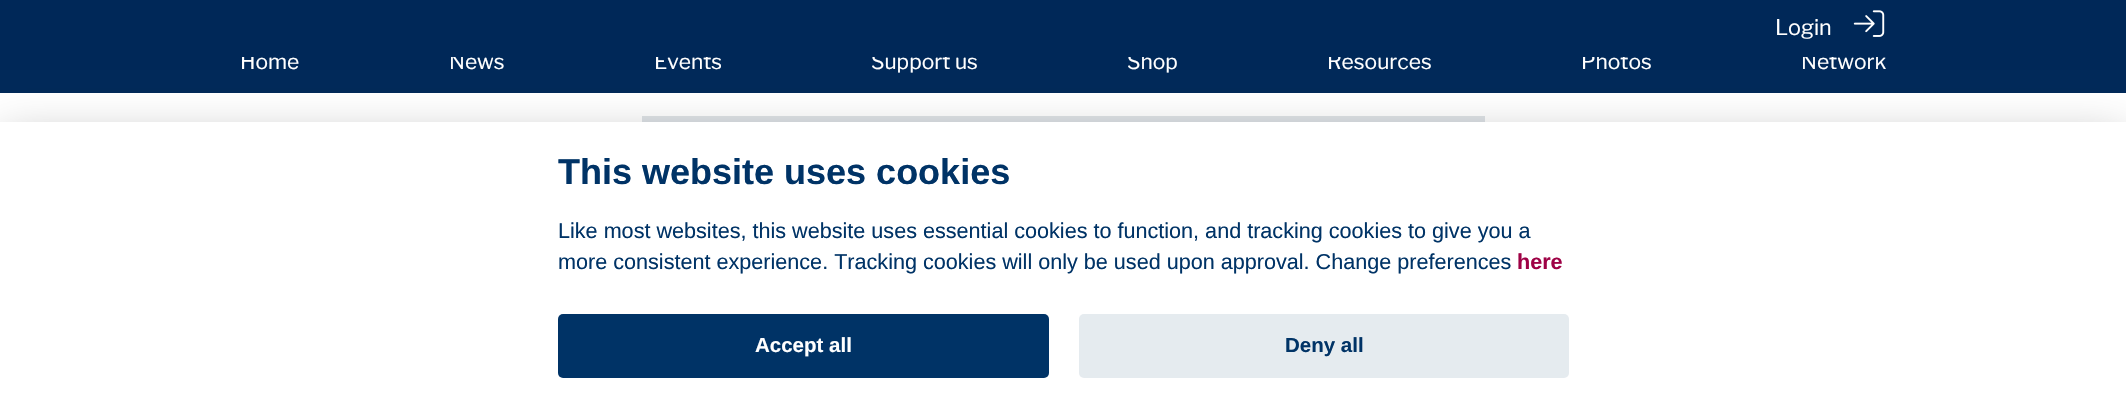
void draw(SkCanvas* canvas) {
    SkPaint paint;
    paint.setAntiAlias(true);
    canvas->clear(0xFFFFFFFF);
    paint.setColor(0xFF002858);
    canvas->drawRect(SkRect::MakeXYWH(0, 57, 2126, 36), paint);
    SkFont font1(fontMgr->matchFamilyStyle("Libre Franklin", SkFontStyle::Normal()), 21);
    font1.setSubpixel(true);
    paint.setColor(0xFFFFFFFF);
    canvas->drawString("Home", 240, 69, font1, paint);
    canvas->drawString("News", 449, 69, font1, paint);
    canvas->drawString("Events", 654, 69, font1, paint);
    canvas->drawString("Support us", 871, 69, font1, paint);
    canvas->drawString("Shop", 1127, 69, font1, paint);
    canvas->drawString("Resources", 1327, 69, font1, paint);
    canvas->drawString("Photos", 1581, 69, font1, paint);
    canvas->drawString("Network", 1801, 69, font1, paint);
    paint.setColor(0xFF002858);
    canvas->drawRect(SkRect::MakeXYWH(0, 0, 2126, 57), paint);
    SkFont font2(fontMgr->matchFamilyStyle("Libre Franklin", SkFontStyle::Normal()), 21.6f);
    font2.setSubpixel(true);
    paint.setColor(0xFFFFFFFF);
    canvas->drawString("Login", 1775, 35, font2, paint);
    canvas->drawImageRect(SkImages::DeferredFromEncodedData(SkData::MakeFromFileName("img1.png")), SkRect::MakeXYWH(1853, 10, 32, 27), SkSamplingOptions());
    paint.setColor(0xFFDEE2E6);
    canvas->drawRect(SkRect::MakeXYWH(642, 116, 843, 6), paint);
    paint.setColor(0x47020203);
    paint.setMaskFilter(SkMaskFilter::MakeBlur(kNormal_SkBlurStyle, 22.5f));
    canvas->drawRect(SkRect::MakeXYWH(0, 137, 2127, 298), paint);
    paint.setMaskFilter(nullptr);
    paint.setColor(0xFFFFFFFF);
    canvas->drawRect(SkRect::MakeXYWH(0, 122, 2126, 298), paint);
    SkFont font3(fontMgr->matchFamilyStyle("Liberation Sans", SkFontStyle::Bold()), 36);
    font3.setSubpixel(true);
    paint.setColor(0xFF003366);
    canvas->drawString("This website uses cookies", 558, 184, font3, paint);
    SkFont font4(fontMgr->matchFamilyStyle("Liberation Sans", SkFontStyle::Normal()), 21.6f);
    font4.setSubpixel(true);
    canvas->drawString("Like most websites, this website uses essential cookies to function, and tracking cookies to give you a", 558, 238, font4, paint);
    canvas->drawString("more consistent experience. Tracking cookies will only be used upon approval. Change preferences", 558, 269, font4, paint);
    SkFont font5(fontMgr->matchFamilyStyle("Liberation Sans", SkFontStyle::Bold()), 21.6f);
    font5.setSubpixel(true);
    paint.setColor(0xFF9E0145);
    canvas->drawString("here", 1517, 269, font5, paint);
    paint.setColor(0xFF003366);
    canvas->drawRoundRect(SkRect::MakeXYWH(558, 314, 491, 64), 5, 5, paint);
    SkFont font6(fontMgr->matchFamilyStyle("Liberation Sans", SkFontStyle::Bold()), 20.5f);
    font6.setSubpixel(true);
    paint.setColor(0xFFFFFFFF);
    canvas->drawString("Accept all", 755, 352, font6, paint);
    paint.setColor(0xFFE5EBEF);
    canvas->drawRoundRect(SkRect::MakeXYWH(1079, 314, 490, 64), 5, 5, paint);
    paint.setColor(0xFF003366);
    canvas->drawString("Deny all", 1285, 352, font6, paint);
}
